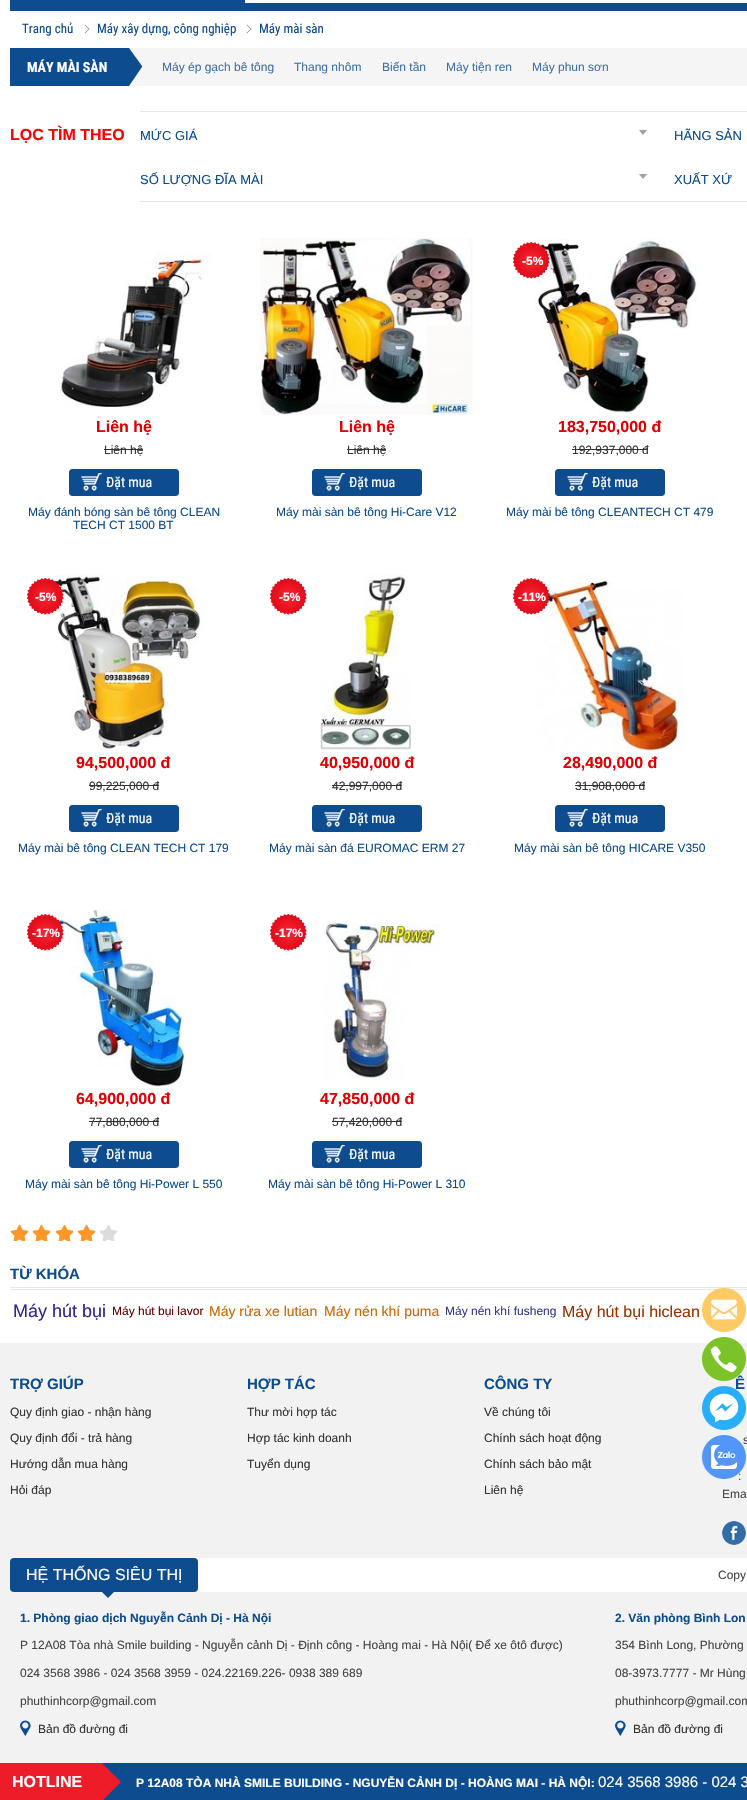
void draw(SkCanvas* canvas) {
    SkPaint paint;
    paint.setAntiAlias(true);
    canvas->clear(0xFFFFFFFF);
    paint.setColor(0xFF0D4C8F);
    canvas->drawRect(SkRect::MakeXYWH(10, 0, 737, 11), paint);
    paint.setColor(0xFFFFFFFF);
    canvas->drawRect(SkRect::MakeXYWH(245, 0, 502, 3), paint);
    SkFont font1(fontMgr->matchFamilyStyle("Roboto Condensed", SkFontStyle::Normal()), 13);
    font1.setSubpixel(true);
    paint.setColor(0xFF0D4C8F);
    canvas->drawString("Trang chủ", 22, 33, font1, paint);
    canvas->drawImageRect(SkImages::DeferredFromEncodedData(SkData::MakeFromFileName("img1.png")), SkRect::MakeXYWH(84, 24, 6, 10), SkSamplingOptions());
    canvas->drawString("Máy xây dựng, công nghiệp", 97, 33, font1, paint);
    canvas->drawImageRect(SkImages::DeferredFromEncodedData(SkData::MakeFromFileName("img1.png")), SkRect::MakeXYWH(246, 24, 6, 10), SkSamplingOptions());
    canvas->drawString("Máy mài sàn", 259, 33, font1, paint);
    paint.setColor(0xFFF5F5F5);
    canvas->drawRect(SkRect::MakeXYWH(129, 48, 618, 38), paint);
    paint.setColor(0xFF0D4C8F);
    canvas->drawPath(SkPathBuilder().moveTo(10, 48).lineTo(10, 86).lineTo(129, 86).lineTo(142, 67).lineTo(142, 66).lineTo(129, 48).close().detach(), paint);
    SkFont font2(fontMgr->matchFamilyStyle("Roboto Condensed", SkFontStyle::Bold()), 14);
    font2.setSubpixel(true);
    paint.setColor(0xFFFFFFFF);
    canvas->drawString("MÁY MÀI SÀN", 27, 72, font2, paint);
    SkFont font3(fontMgr->matchFamilyStyle("Liberation Sans", SkFontStyle::Normal()), 12);
    font3.setSubpixel(true);
    paint.setColor(0xFF4071A5);
    canvas->drawString("Máy ép gạch bê tông", 162, 71, font3, paint);
    canvas->drawString("Thang nhôm", 294, 71, font3, paint);
    canvas->drawString("Biến tần", 382, 71, font3, paint);
    canvas->drawString("Máy tiện ren", 446, 71, font3, paint);
    canvas->drawString("Máy phun sơn", 532, 71, font3, paint);
    SkFont font4(fontMgr->matchFamilyStyle("Liberation Sans", SkFontStyle::Bold()), 16);
    font4.setSubpixel(true);
    paint.setColor(0xFFFF0000);
    canvas->drawString("LỌC TÌM THEO", 10, 140, font4, paint);
    paint.setColor(0xFFE5E5E5);
    canvas->drawRect(SkRect::MakeXYWH(140, 111, 607, 1), paint);
    canvas->drawRect(SkRect::MakeXYWH(140, 201, 607, 1), paint);
    SkFont font5(fontMgr->matchFamilyStyle("Liberation Sans", SkFontStyle::Normal()), 13);
    font5.setSubpixel(true);
    paint.setColor(0xFF0D4C8F);
    canvas->drawString("MỨC GIÁ", 140, 140, font5, paint);
    paint.setColor(0xFFA0A0A0);
    canvas->drawPath(SkPathBuilder().moveTo(639, 130).lineTo(647, 130).lineTo(643, 135).close().detach(), paint);
    paint.setColor(0xFF0D4C8F);
    canvas->drawString("HÃNG SẢN", 674, 140, font5, paint);
    canvas->drawString("SỐ LƯỢNG ĐĨA MÀI", 140, 184, font5, paint);
    paint.setColor(0xFFA0A0A0);
    canvas->drawPath(SkPathBuilder().moveTo(639, 174).lineTo(647, 174).lineTo(643, 179).close().detach(), paint);
    paint.setColor(0xFF0D4C8F);
    canvas->drawString("XUẤT XỨ", 674, 184, font5, paint);
    canvas->drawImageRect(SkImages::DeferredFromEncodedData(SkData::MakeFromFileName("img2.png")), SkRect::MakeXYWH(60, 252, 151, 156), SkSamplingOptions());
    paint.setColor(0xFFE00000);
    canvas->drawString("Liên hệ", 96, 432, font4, paint);
    paint.setColor(0xFF333333);
    canvas->drawString("Liên hệ", 104, 454, font3, paint);
    canvas->drawRect(SkRect::MakeXYWH(104, 449, 39, 1), paint);
    paint.setColor(0xFF0D4C8F);
    canvas->drawRoundRect(SkRect::MakeXYWH(69, 469, 110, 27), 4, 4, paint);
    canvas->drawImageRect(SkImages::DeferredFromEncodedData(SkData::MakeFromFileName("img3.png")), SkRect::MakeXYWH(81, 473, 21, 18), SkSamplingOptions());
    paint.setStyle(SkPaint::kStroke_Style);
    paint.setStrokeWidth(1);
    canvas->drawRoundRect(SkRect::MakeXYWH(69.5f, 469.5f, 109, 26), 3.5f, 3.5f, paint);
    SkFont font6(fontMgr->matchFamilyStyle("Roboto Condensed", SkFontStyle::Normal()), 14);
    font6.setSubpixel(true);
    paint.setStyle(SkPaint::kFill_Style);
    paint.setColor(0xFFFFFFFF);
    canvas->drawString("Đặt mua", 106, 487, font6, paint);
    paint.setColor(0xFF0D4C8F);
    canvas->drawString("Máy đánh bóng sàn bê tông CLEAN", 28, 516, font3, paint);
    canvas->drawString("TECH CT 1500 BT", 73, 529, font3, paint);
    canvas->drawImageRect(SkImages::DeferredFromEncodedData(SkData::MakeFromFileName("img4.png")), SkRect::MakeXYWH(256, 238, 217, 177), SkSamplingOptions());
    paint.setColor(0xFFE00000);
    canvas->drawString("Liên hệ", 339, 432, font4, paint);
    paint.setColor(0xFF333333);
    canvas->drawString("Liên hệ", 347, 454, font3, paint);
    canvas->drawRect(SkRect::MakeXYWH(347, 449, 39, 1), paint);
    paint.setColor(0xFF0D4C8F);
    canvas->drawRoundRect(SkRect::MakeXYWH(312, 469, 110, 27), 4, 4, paint);
    canvas->drawImageRect(SkImages::DeferredFromEncodedData(SkData::MakeFromFileName("img3.png")), SkRect::MakeXYWH(324, 473, 21, 18), SkSamplingOptions());
    paint.setStyle(SkPaint::kStroke_Style);
    canvas->drawRoundRect(SkRect::MakeXYWH(312.5f, 469.5f, 109, 26), 3.5f, 3.5f, paint);
    paint.setStyle(SkPaint::kFill_Style);
    paint.setColor(0xFFFFFFFF);
    canvas->drawString("Đặt mua", 349, 487, font6, paint);
    paint.setColor(0xFF0D4C8F);
    canvas->drawString("Máy mài sàn bê tông Hi-Care V12", 276, 516, font3, paint);
    canvas->drawImageRect(SkImages::DeferredFromEncodedData(SkData::MakeFromFileName("img5.png")), SkRect::MakeXYWH(527, 238, 171, 177), SkSamplingOptions());
    canvas->drawImageRect(SkImages::DeferredFromEncodedData(SkData::MakeFromFileName("img6.png")), SkRect::MakeXYWH(513, 242, 37, 37), SkSamplingOptions());
    SkFont font7(fontMgr->matchFamilyStyle("Liberation Sans", SkFontStyle::Bold()), 12);
    font7.setSubpixel(true);
    paint.setColor(0xFFFFFFFF);
    canvas->drawString("-5%", 522, 265, font7, paint);
    paint.setColor(0xFFE00000);
    canvas->drawString("183,750,000 đ", 558, 432, font4, paint);
    paint.setColor(0xFF333333);
    canvas->drawString("192,937,000 đ", 572, 454, font3, paint);
    canvas->drawRect(SkRect::MakeXYWH(572, 449, 76, 1), paint);
    paint.setColor(0xFF0D4C8F);
    canvas->drawRoundRect(SkRect::MakeXYWH(555, 469, 110, 27), 4, 4, paint);
    canvas->drawImageRect(SkImages::DeferredFromEncodedData(SkData::MakeFromFileName("img3.png")), SkRect::MakeXYWH(567, 473, 21, 18), SkSamplingOptions());
    paint.setStyle(SkPaint::kStroke_Style);
    canvas->drawRoundRect(SkRect::MakeXYWH(555.5f, 469.5f, 109, 26), 3.5f, 3.5f, paint);
    paint.setStyle(SkPaint::kFill_Style);
    paint.setColor(0xFFFFFFFF);
    canvas->drawString("Đặt mua", 592, 487, font6, paint);
    paint.setColor(0xFF0D4C8F);
    canvas->drawString("Máy mài bê tông CLEANTECH CT 479", 506, 516, font3, paint);
    canvas->drawImageRect(SkImages::DeferredFromEncodedData(SkData::MakeFromFileName("img7.png")), SkRect::MakeXYWH(43, 574, 161, 177), SkSamplingOptions());
    canvas->drawImageRect(SkImages::DeferredFromEncodedData(SkData::MakeFromFileName("img8.png")), SkRect::MakeXYWH(27, 578, 37, 37), SkSamplingOptions());
    paint.setColor(0xFFFFFFFF);
    canvas->drawString("-5%", 35, 601, font7, paint);
    paint.setColor(0xFFE00000);
    canvas->drawString("94,500,000 đ", 76, 768, font4, paint);
    paint.setColor(0xFF333333);
    canvas->drawString("99,225,000 đ", 89, 790, font3, paint);
    canvas->drawRect(SkRect::MakeXYWH(89, 785, 70, 1), paint);
    paint.setColor(0xFF0D4C8F);
    canvas->drawRoundRect(SkRect::MakeXYWH(69, 805, 110, 27), 4, 4, paint);
    canvas->drawImageRect(SkImages::DeferredFromEncodedData(SkData::MakeFromFileName("img3.png")), SkRect::MakeXYWH(81, 809, 21, 18), SkSamplingOptions());
    paint.setStyle(SkPaint::kStroke_Style);
    canvas->drawRoundRect(SkRect::MakeXYWH(69.5f, 805.5f, 109, 26), 3.5f, 3.5f, paint);
    paint.setStyle(SkPaint::kFill_Style);
    paint.setColor(0xFFFFFFFF);
    canvas->drawString("Đặt mua", 106, 823, font6, paint);
    paint.setColor(0xFF0D4C8F);
    canvas->drawString("Máy mài bê tông CLEAN TECH CT 179", 18, 852, font3, paint);
    canvas->drawImageRect(SkImages::DeferredFromEncodedData(SkData::MakeFromFileName("img9.png")), SkRect::MakeXYWH(270, 578, 37, 37), SkSamplingOptions());
    paint.setColor(0xFFFFFFFF);
    canvas->drawString("-5%", 279, 601, font7, paint);
    canvas->drawImageRect(SkImages::DeferredFromEncodedData(SkData::MakeFromFileName("img10.png")), SkRect::MakeXYWH(320, 574, 92, 177), SkSamplingOptions());
    paint.setColor(0xFFE00000);
    canvas->drawString("40,950,000 đ", 320, 768, font4, paint);
    paint.setColor(0xFF333333);
    canvas->drawString("42,997,000 đ", 332, 790, font3, paint);
    canvas->drawRect(SkRect::MakeXYWH(332, 785, 70, 1), paint);
    paint.setColor(0xFF0D4C8F);
    canvas->drawRoundRect(SkRect::MakeXYWH(312, 805, 110, 27), 4, 4, paint);
    canvas->drawImageRect(SkImages::DeferredFromEncodedData(SkData::MakeFromFileName("img3.png")), SkRect::MakeXYWH(324, 809, 21, 18), SkSamplingOptions());
    paint.setStyle(SkPaint::kStroke_Style);
    canvas->drawRoundRect(SkRect::MakeXYWH(312.5f, 805.5f, 109, 26), 3.5f, 3.5f, paint);
    paint.setStyle(SkPaint::kFill_Style);
    paint.setColor(0xFFFFFFFF);
    canvas->drawString("Đặt mua", 349, 823, font6, paint);
    paint.setColor(0xFF0D4C8F);
    canvas->drawString("Máy mài sàn đá EUROMAC ERM 27", 269, 852, font3, paint);
    canvas->drawImageRect(SkImages::DeferredFromEncodedData(SkData::MakeFromFileName("img11.png")), SkRect::MakeXYWH(528, 574, 156, 177), SkSamplingOptions());
    canvas->drawImageRect(SkImages::DeferredFromEncodedData(SkData::MakeFromFileName("img12.png")), SkRect::MakeXYWH(513, 578, 37, 37), SkSamplingOptions());
    paint.setColor(0xFFFFFFFF);
    canvas->drawString("-11%", 518, 601, font7, paint);
    paint.setColor(0xFFE00000);
    canvas->drawString("28,490,000 đ", 563, 768, font4, paint);
    paint.setColor(0xFF333333);
    canvas->drawString("31,908,000 đ", 575, 790, font3, paint);
    canvas->drawRect(SkRect::MakeXYWH(575, 785, 70, 1), paint);
    paint.setColor(0xFF0D4C8F);
    canvas->drawRoundRect(SkRect::MakeXYWH(555, 805, 110, 27), 4, 4, paint);
    canvas->drawImageRect(SkImages::DeferredFromEncodedData(SkData::MakeFromFileName("img3.png")), SkRect::MakeXYWH(567, 809, 21, 18), SkSamplingOptions());
    paint.setStyle(SkPaint::kStroke_Style);
    canvas->drawRoundRect(SkRect::MakeXYWH(555.5f, 805.5f, 109, 26), 3.5f, 3.5f, paint);
    paint.setStyle(SkPaint::kFill_Style);
    paint.setColor(0xFFFFFFFF);
    canvas->drawString("Đặt mua", 592, 823, font6, paint);
    paint.setColor(0xFF0D4C8F);
    canvas->drawString("Máy mài sàn bê tông HICARE V350", 514, 852, font3, paint);
    canvas->drawImageRect(SkImages::DeferredFromEncodedData(SkData::MakeFromFileName("img13.png")), SkRect::MakeXYWH(41, 910, 148, 177), SkSamplingOptions());
    canvas->drawImageRect(SkImages::DeferredFromEncodedData(SkData::MakeFromFileName("img14.png")), SkRect::MakeXYWH(27, 914, 37, 37), SkSamplingOptions());
    paint.setColor(0xFFFFFFFF);
    canvas->drawString("-17%", 32, 937, font7, paint);
    paint.setColor(0xFFE00000);
    canvas->drawString("64,900,000 đ", 76, 1104, font4, paint);
    paint.setColor(0xFF333333);
    canvas->drawString("77,880,000 đ", 89, 1126, font3, paint);
    canvas->drawRect(SkRect::MakeXYWH(89, 1121, 70, 1), paint);
    paint.setColor(0xFF0D4C8F);
    canvas->drawRoundRect(SkRect::MakeXYWH(69, 1141, 110, 27), 4, 4, paint);
    canvas->drawImageRect(SkImages::DeferredFromEncodedData(SkData::MakeFromFileName("img3.png")), SkRect::MakeXYWH(81, 1145, 21, 18), SkSamplingOptions());
    paint.setStyle(SkPaint::kStroke_Style);
    canvas->drawRoundRect(SkRect::MakeXYWH(69.5f, 1141.5f, 109, 26), 3.5f, 3.5f, paint);
    paint.setStyle(SkPaint::kFill_Style);
    paint.setColor(0xFFFFFFFF);
    canvas->drawString("Đặt mua", 106, 1159, font6, paint);
    paint.setColor(0xFF0D4C8F);
    canvas->drawString("Máy mài sàn bê tông Hi-Power L 550", 25, 1188, font3, paint);
    canvas->drawImageRect(SkImages::DeferredFromEncodedData(SkData::MakeFromFileName("img9.png")), SkRect::MakeXYWH(270, 914, 37, 37), SkSamplingOptions());
    paint.setColor(0xFFFFFFFF);
    canvas->drawString("-17%", 275, 937, font7, paint);
    canvas->drawImageRect(SkImages::DeferredFromEncodedData(SkData::MakeFromFileName("img15.png")), SkRect::MakeXYWH(323, 919, 118, 161), SkSamplingOptions());
    paint.setColor(0xFFE00000);
    canvas->drawString("47,850,000 đ", 320, 1104, font4, paint);
    paint.setColor(0xFF333333);
    canvas->drawString("57,420,000 đ", 332, 1126, font3, paint);
    canvas->drawRect(SkRect::MakeXYWH(332, 1121, 70, 1), paint);
    paint.setColor(0xFF0D4C8F);
    canvas->drawRoundRect(SkRect::MakeXYWH(312, 1141, 110, 27), 4, 4, paint);
    canvas->drawImageRect(SkImages::DeferredFromEncodedData(SkData::MakeFromFileName("img3.png")), SkRect::MakeXYWH(324, 1145, 21, 18), SkSamplingOptions());
    paint.setStyle(SkPaint::kStroke_Style);
    canvas->drawRoundRect(SkRect::MakeXYWH(312.5f, 1141.5f, 109, 26), 3.5f, 3.5f, paint);
    paint.setStyle(SkPaint::kFill_Style);
    paint.setColor(0xFFFFFFFF);
    canvas->drawString("Đặt mua", 349, 1159, font6, paint);
    paint.setColor(0xFF0D4C8F);
    canvas->drawString("Máy mài sàn bê tông Hi-Power L 310", 268, 1188, font3, paint);
    canvas->drawImageRect(SkImages::DeferredFromEncodedData(SkData::MakeFromFileName("img16.png")), SkRect::MakeXYWH(10, 1225, 19, 16), SkSamplingOptions());
    canvas->drawImageRect(SkImages::DeferredFromEncodedData(SkData::MakeFromFileName("img16.png")), SkRect::MakeXYWH(32, 1225, 19, 16), SkSamplingOptions());
    canvas->drawImageRect(SkImages::DeferredFromEncodedData(SkData::MakeFromFileName("img16.png")), SkRect::MakeXYWH(55, 1225, 19, 16), SkSamplingOptions());
    canvas->drawImageRect(SkImages::DeferredFromEncodedData(SkData::MakeFromFileName("img16.png")), SkRect::MakeXYWH(77, 1225, 19, 16), SkSamplingOptions());
    canvas->drawImageRect(SkImages::DeferredFromEncodedData(SkData::MakeFromFileName("img17.png")), SkRect::MakeXYWH(99, 1225, 19, 16), SkSamplingOptions());
    paint.setColor(0xFFE8E8E8);
    canvas->drawRect(SkRect::MakeXYWH(10, 1289, 737, 1), paint);
    canvas->drawRect(SkRect::MakeXYWH(10, 1287, 737, 1), paint);
    SkFont font8(fontMgr->matchFamilyStyle("Liberation Sans", SkFontStyle::Bold()), 15);
    font8.setSubpixel(true);
    paint.setColor(0xFF0D4C8F);
    canvas->drawString("TỪ KHÓA", 10, 1279, font8, paint);
    SkFont font9(fontMgr->matchFamilyStyle("Liberation Sans", SkFontStyle::Normal()), 18);
    font9.setSubpixel(true);
    paint.setColor(0xFF352295);
    canvas->drawString("Máy hút bụi", 13, 1317, font9, paint);
    paint.setColor(0xFF660000);
    canvas->drawString("Máy hút bụi lavor", 112, 1315, font3, paint);
    SkFont font10(fontMgr->matchFamilyStyle("Liberation Sans", SkFontStyle::Normal()), 14);
    font10.setSubpixel(true);
    paint.setColor(0xFFCC6600);
    canvas->drawString("Máy rửa xe lutian", 209, 1316, font10, paint);
    canvas->drawString("Máy nén khí puma", 324, 1316, font10, paint);
    paint.setColor(0xFF353895);
    canvas->drawString("Máy nén khí fusheng", 445, 1315, font3, paint);
    SkFont font11(fontMgr->matchFamilyStyle("Liberation Sans", SkFontStyle::Normal()), 16);
    font11.setSubpixel(true);
    paint.setColor(0xFF993300);
    canvas->drawString("Máy hút bụi hiclean", 562, 1317, font11, paint);
    canvas->drawImageRect(SkImages::DeferredFromEncodedData(SkData::MakeFromFileName("img18.png")), SkRect::MakeXYWH(702, 1288, 44, 44), SkSamplingOptions());
    paint.setColor(0xFFF2F2F2);
    canvas->drawRect(SkRect::MakeXYWH(0, 1343, 747, 420), paint);
    paint.setColor(0xFF0D4C8F);
    canvas->drawString("Ê", 735, 1389, font8, paint);
    canvas->drawImageRect(SkImages::DeferredFromEncodedData(SkData::MakeFromFileName("img19.png")), SkRect::MakeXYWH(702, 1337, 44, 44), SkSamplingOptions());
    canvas->drawImageRect(SkImages::DeferredFromEncodedData(SkData::MakeFromFileName("img20.png")), SkRect::MakeXYWH(702, 1386, 44, 44), SkSamplingOptions());
    paint.setColor(0xFF444444);
    canvas->drawString("s", 743, 1444, font3, paint);
    canvas->drawString(":", 738, 1480, font3, paint);
    canvas->drawImageRect(SkImages::DeferredFromEncodedData(SkData::MakeFromFileName("img21.png")), SkRect::MakeXYWH(702, 1435, 44, 44), SkSamplingOptions());
    paint.setColor(0xFF0D4C8F);
    canvas->drawString("TRỢ GIÚP", 10, 1389, font8, paint);
    paint.setColor(0xFF333333);
    canvas->drawString("Quy định giao - nhận hàng", 10, 1416, font3, paint);
    canvas->drawString("Quy định đổi - trả hàng", 10, 1442, font3, paint);
    canvas->drawString("Hướng dẫn mua hàng", 10, 1468, font3, paint);
    canvas->drawString("Hỏi đáp", 10, 1494, font3, paint);
    paint.setColor(0xFF0D4C8F);
    canvas->drawString("HỢP TÁC", 247, 1389, font8, paint);
    paint.setColor(0xFF333333);
    canvas->drawString("Thư mời hợp tác", 247, 1416, font3, paint);
    canvas->drawString("Hợp tác kinh doanh", 247, 1442, font3, paint);
    canvas->drawString("Tuyển dụng", 247, 1468, font3, paint);
    paint.setColor(0xFF0D4C8F);
    canvas->drawString("CÔNG TY", 484, 1389, font8, paint);
    paint.setColor(0xFF333333);
    canvas->drawString("Về chúng tôi", 484, 1416, font3, paint);
    canvas->drawString("Chính sách hoạt động", 484, 1442, font3, paint);
    canvas->drawString("Chính sách bảo mật", 484, 1468, font3, paint);
    canvas->drawString("Liên hệ", 484, 1494, font3, paint);
    paint.setColor(0xFF444444);
    canvas->drawString("Ema", 722, 1498, font3, paint);
    canvas->drawImageRect(SkImages::DeferredFromEncodedData(SkData::MakeFromFileName("img22.png")), SkRect::MakeXYWH(722, 1521, 24, 24), SkSamplingOptions());
    paint.setColor(0xFFFFFFFF);
    canvas->drawRoundRect(SkRect::MakeXYWH(10, 1558, 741, 34), 4, 4, paint);
    paint.setColor(0xFF0D4C8F);
    canvas->drawRoundRect(SkRect::MakeXYWH(10, 1558, 188, 34), 4, 4, paint);
    paint.setColor(0xFFFFFFFF);
    canvas->drawString("HỆ THỐNG SIÊU THỊ", 26, 1580, font11, paint);
    paint.setColor(0xFF0D4C8F);
    canvas->drawPath(SkPathBuilder().moveTo(100, 1590).lineTo(116, 1590).lineTo(108, 1598).close().detach(), paint);
    paint.setColor(0xFF444444);
    canvas->drawString("Copy", 718, 1579, font3, paint);
    paint.setColor(0xFF0D4C8F);
    canvas->drawString("1. Phòng giao dịch Nguyễn Cảnh Dị - Hà Nội", 20, 1622, font7, paint);
    paint.setColor(0xFF444444);
    canvas->drawString("P 12A08 Tòa nhà Smile building - Nguyễn cảnh Dị - Định công - Hoàng mai - Hà Nội( Để xe ôtô được)", 20, 1649, font3, paint);
    canvas->drawString("024 3568 3986 - 024 3568 3959 - 024.22169.226- 0938 389 689", 20, 1677, font3, paint);
    canvas->drawString("phuthinhcorp@gmail.com", 20, 1705, font3, paint);
    canvas->drawImageRect(SkImages::DeferredFromEncodedData(SkData::MakeFromFileName("img23.png")), SkRect::MakeXYWH(20, 1720, 11, 16), SkSamplingOptions());
    paint.setColor(0xFF333333);
    canvas->drawString("Bản đồ đường đi", 38, 1733, font3, paint);
    paint.setColor(0xFF0D4C8F);
    canvas->drawString("2. Văn phòng Bình Lon", 615, 1622, font7, paint);
    paint.setColor(0xFF444444);
    canvas->drawString("354 Bình Long, Phường", 615, 1649, font3, paint);
    canvas->drawString("08-3973.7777 - Mr Hùng", 615, 1677, font3, paint);
    canvas->drawString("phuthinhcorp@gmail.com", 615, 1705, font3, paint);
    canvas->drawImageRect(SkImages::DeferredFromEncodedData(SkData::MakeFromFileName("img23.png")), SkRect::MakeXYWH(615, 1720, 11, 16), SkSamplingOptions());
    paint.setColor(0xFF333333);
    canvas->drawString("Bản đồ đường đi", 633, 1733, font3, paint);
    paint.setColor(0xFF0D4C8F);
    canvas->drawRect(SkRect::MakeXYWH(102, 1763, 645, 37), paint);
    paint.setColor(0xFFED1C29);
    canvas->drawRect(SkRect::MakeXYWH(0, 1763, 102, 37), paint);
    paint.setColor(0xFFFFFFFF);
    canvas->drawString("HOTLINE", 12, 1787, font4, paint);
    paint.setColor(0xFFED1C29);
    canvas->drawPath(SkPathBuilder().moveTo(102, 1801).lineTo(102, 1763).lineTo(121, 1782).close().detach(), paint);
    paint.setColor(0xFFFFFFFF);
    canvas->drawString("P 12A08 TÒA NHÀ SMILE BUILDING - NGUYỄN CẢNH DỊ - HOÀNG MAI - HÀ NỘI:", 136, 1787, font7, paint);
    SkFont font12(fontMgr->matchFamilyStyle("Liberation Sans", SkFontStyle::Normal()), 15);
    font12.setSubpixel(true);
    canvas->drawString("024 3568 3986 - 024 3", 598, 1787, font12, paint);
}
